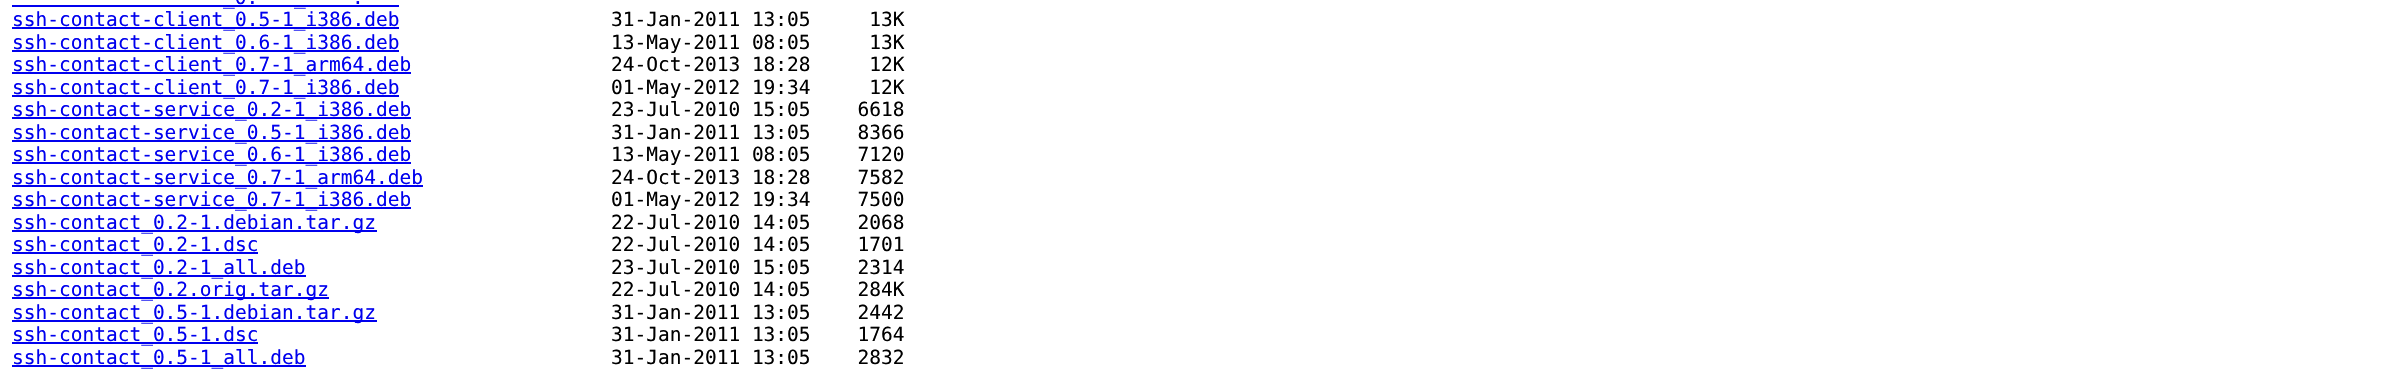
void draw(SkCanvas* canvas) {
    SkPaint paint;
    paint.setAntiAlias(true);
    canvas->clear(0xFFFFFFFF);
    paint.setColor(0xFF0000EE);
    canvas->drawRect(SkRect::MakeXYWH(12, 5, 387, 2), paint);
    SkFont font1(fontMgr->matchFamilyStyle("DejaVu Sans Mono", SkFontStyle::Normal()), 19.5f);
    font1.setSubpixel(true);
    canvas->drawString("_0.", 223, 4, font1, paint);
    canvas->drawString(".", 352, 4, font1, paint);
    canvas->drawString("_", 294, 4, font1, paint);
    canvas->drawRect(SkRect::MakeXYWH(12, 27, 387, 2), paint);
    canvas->drawString("ssh-contact-client_0.5-1_i386.deb", 12, 26, font1, paint);
    paint.setColor(0xFF000000);
    canvas->drawString("31-Jan-2011 13:05     13K", 611, 26, font1, paint);
    paint.setColor(0xFF0000EE);
    canvas->drawRect(SkRect::MakeXYWH(12, 50, 387, 2), paint);
    canvas->drawString("ssh-contact-client_0.6-1_i386.deb", 12, 49, font1, paint);
    paint.setColor(0xFF000000);
    canvas->drawString("13-May-2011 08:05     13K", 611, 49, font1, paint);
    paint.setColor(0xFF0000EE);
    canvas->drawRect(SkRect::MakeXYWH(12, 72, 399, 2), paint);
    canvas->drawString("ssh-contact-client_0.7-1_arm64.deb", 12, 71, font1, paint);
    paint.setColor(0xFF000000);
    canvas->drawString("24-Oct-2013 18:28     12K", 611, 71, font1, paint);
    paint.setColor(0xFF0000EE);
    canvas->drawRect(SkRect::MakeXYWH(12, 95, 387, 2), paint);
    canvas->drawString("ssh-contact-client_0.7-1_i386.deb", 12, 94, font1, paint);
    paint.setColor(0xFF000000);
    canvas->drawString("01-May-2012 19:34     12K", 611, 94, font1, paint);
    paint.setColor(0xFF0000EE);
    canvas->drawRect(SkRect::MakeXYWH(12, 117, 399, 2), paint);
    canvas->drawString("ssh-contact-service_0.2-1_i386.deb", 12, 116, font1, paint);
    paint.setColor(0xFF000000);
    canvas->drawString("23-Jul-2010 15:05    6618", 611, 116, font1, paint);
    paint.setColor(0xFF0000EE);
    canvas->drawRect(SkRect::MakeXYWH(12, 140, 399, 2), paint);
    canvas->drawString("ssh-contact-service_0.5-1_i386.deb", 12, 139, font1, paint);
    paint.setColor(0xFF000000);
    canvas->drawString("31-Jan-2011 13:05    8366", 611, 139, font1, paint);
    paint.setColor(0xFF0000EE);
    canvas->drawRect(SkRect::MakeXYWH(12, 162, 399, 2), paint);
    canvas->drawString("ssh-contact-service_0.6-1_i386.deb", 12, 161, font1, paint);
    paint.setColor(0xFF000000);
    canvas->drawString("13-May-2011 08:05    7120", 611, 161, font1, paint);
    paint.setColor(0xFF0000EE);
    canvas->drawRect(SkRect::MakeXYWH(12, 185, 411, 2), paint);
    canvas->drawString("ssh-contact-service_0.7-1_arm64.deb", 12, 184, font1, paint);
    paint.setColor(0xFF000000);
    canvas->drawString("24-Oct-2013 18:28    7582", 611, 184, font1, paint);
    paint.setColor(0xFF0000EE);
    canvas->drawRect(SkRect::MakeXYWH(12, 207, 399, 2), paint);
    canvas->drawString("ssh-contact-service_0.7-1_i386.deb", 12, 206, font1, paint);
    paint.setColor(0xFF000000);
    canvas->drawString("01-May-2012 19:34    7500", 611, 206, font1, paint);
    paint.setColor(0xFF0000EE);
    canvas->drawRect(SkRect::MakeXYWH(12, 230, 365, 2), paint);
    canvas->drawString("ssh-contact_0.2-1.debian.tar.gz", 12, 229, font1, paint);
    paint.setColor(0xFF000000);
    canvas->drawString("22-Jul-2010 14:05    2068", 611, 229, font1, paint);
    paint.setColor(0xFF0000EE);
    canvas->drawRect(SkRect::MakeXYWH(12, 252, 246, 2), paint);
    canvas->drawString("ssh-contact_0.2-1.dsc", 12, 251, font1, paint);
    paint.setColor(0xFF000000);
    canvas->drawString("22-Jul-2010 14:05    1701", 611, 251, font1, paint);
    paint.setColor(0xFF0000EE);
    canvas->drawRect(SkRect::MakeXYWH(12, 275, 294, 2), paint);
    canvas->drawString("ssh-contact_0.2-1_all.deb", 12, 274, font1, paint);
    paint.setColor(0xFF000000);
    canvas->drawString("23-Jul-2010 15:05    2314", 611, 274, font1, paint);
    paint.setColor(0xFF0000EE);
    canvas->drawRect(SkRect::MakeXYWH(12, 297, 317, 2), paint);
    canvas->drawString("ssh-contact_0.2.orig.tar.gz", 12, 296, font1, paint);
    paint.setColor(0xFF000000);
    canvas->drawString("22-Jul-2010 14:05    284K", 611, 296, font1, paint);
    paint.setColor(0xFF0000EE);
    canvas->drawRect(SkRect::MakeXYWH(12, 320, 365, 2), paint);
    canvas->drawString("ssh-contact_0.5-1.debian.tar.gz", 12, 319, font1, paint);
    paint.setColor(0xFF000000);
    canvas->drawString("31-Jan-2011 13:05    2442", 611, 319, font1, paint);
    paint.setColor(0xFF0000EE);
    canvas->drawRect(SkRect::MakeXYWH(12, 342, 246, 2), paint);
    canvas->drawString("ssh-contact_0.5-1.dsc", 12, 341, font1, paint);
    paint.setColor(0xFF000000);
    canvas->drawString("31-Jan-2011 13:05    1764", 611, 341, font1, paint);
    paint.setColor(0xFF0000EE);
    canvas->drawRect(SkRect::MakeXYWH(12, 365, 294, 2), paint);
    canvas->drawString("ssh-contact_0.5-1_all.deb", 12, 364, font1, paint);
    paint.setColor(0xFF000000);
    canvas->drawString("31-Jan-2011 13:05    2832", 611, 364, font1, paint);
}
